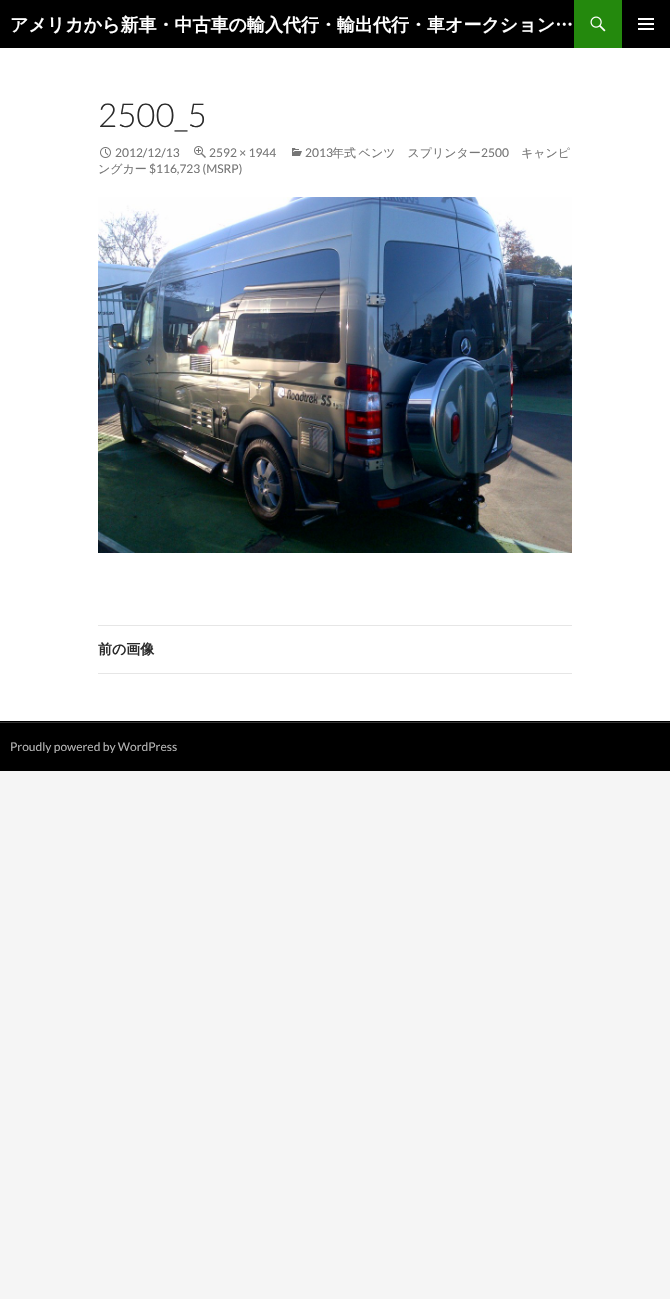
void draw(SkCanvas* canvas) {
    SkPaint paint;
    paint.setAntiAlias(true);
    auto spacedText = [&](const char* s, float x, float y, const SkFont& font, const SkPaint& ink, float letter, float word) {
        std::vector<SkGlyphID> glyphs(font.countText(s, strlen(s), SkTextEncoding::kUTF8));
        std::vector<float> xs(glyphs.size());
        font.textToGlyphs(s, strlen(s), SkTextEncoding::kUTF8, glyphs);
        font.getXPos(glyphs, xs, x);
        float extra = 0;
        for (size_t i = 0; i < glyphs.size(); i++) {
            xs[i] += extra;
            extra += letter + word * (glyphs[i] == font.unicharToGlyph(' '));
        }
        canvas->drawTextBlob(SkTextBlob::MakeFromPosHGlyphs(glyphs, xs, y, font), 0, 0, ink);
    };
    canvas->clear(0xFFF5F5F5);
    paint.setColor(0xFFFFFFFF);
    canvas->drawRect(SkRect::MakeXYWH(0, 48, 670, 673), paint);
    paint.setColor(0xFF000000);
    canvas->drawRect(SkRect::MakeXYWH(0, 0, 670, 48), paint);
    SkFont font1(fontMgr->matchFamilyStyle("WenQuanYi Zen Hei", SkFontStyle::Bold()), 18);
    font1.setSubpixel(true);
    paint.setColor(0xFFFFFFFF);
    canvas->drawString("アメリカから新車・中古車の輸入代行・輸出代行・車オークション…", 10, 31, font1, paint);
    paint.setColor(0xFF24890D);
    canvas->drawRect(SkRect::MakeXYWH(574, 0, 48, 48), paint);
    canvas->drawImageRect(SkImages::DeferredFromEncodedData(SkData::MakeFromFileName("img1.png")), SkRect::MakeXYWH(590, 16, 16, 16), SkSamplingOptions());
    canvas->drawImageRect(SkImages::DeferredFromEncodedData(SkData::MakeFromFileName("img2.png")), SkRect::MakeXYWH(638, 18, 16, 12), SkSamplingOptions());
    SkFont font2(fontMgr->matchFamilyStyle("Lato", SkFontStyle(300, SkFontStyle::kNormal_Width, SkFontStyle::kUpright_Slant)), 33);
    font2.setSubpixel(true);
    paint.setColor(0xFF2B2B2B);
    canvas->drawString("2500_5", 98, 127, font2, paint);
    canvas->drawImageRect(SkImages::DeferredFromEncodedData(SkData::MakeFromFileName("img3.png")), SkRect::MakeXYWH(292, 148, 10, 8), SkSamplingOptions());
    SkFont font3(fontMgr->matchFamilyStyle("Lato", SkFontStyle::Normal()), 12);
    font3.setSubpixel(true);
    paint.setColor(0xFF767676);
    canvas->drawString("2013", 305, 157, font3, paint);
    SkFont font4(fontMgr->matchFamilyStyle("WenQuanYi Zen Hei", SkFontStyle(500, SkFontStyle::kNormal_Width, SkFontStyle::kUpright_Slant)), 12);
    font4.setSubpixel(true);
    spacedText("年式 ベンツ　スプリンター", 332, 157, font4, paint, 0, -1);
    canvas->drawString("2500", 481, 157, font3, paint);
    canvas->drawString("キャンピ", 521, 157, font4, paint);
    canvas->drawString("ングカー", 98, 173, font4, paint);
    canvas->drawString("$116,723 (MSRP)", 149, 173, font3, paint);
    canvas->drawImageRect(SkImages::DeferredFromEncodedData(SkData::MakeFromFileName("img4.png")), SkRect::MakeXYWH(100, 147, 11, 11), SkSamplingOptions());
    canvas->drawString("2012/12/13", 115, 157, font3, paint);
    canvas->drawImageRect(SkImages::DeferredFromEncodedData(SkData::MakeFromFileName("img5.png")), SkRect::MakeXYWH(194, 146, 12, 12), SkSamplingOptions());
    canvas->drawString("2592 × 1944", 209, 157, font3, paint);
    canvas->drawImageRect(SkImages::DeferredFromEncodedData(SkData::MakeFromFileName("img6.png")), SkRect::MakeXYWH(98, 197, 474, 356), SkSamplingOptions());
    paint.setColor(0xFFE6E6E6);
    canvas->drawRect(SkRect::MakeXYWH(98, 625, 474, 1), paint);
    canvas->drawRect(SkRect::MakeXYWH(98, 673, 474, 1), paint);
    SkFont font5(fontMgr->matchFamilyStyle("WenQuanYi Zen Hei", SkFontStyle::Bold()), 14);
    font5.setSubpixel(true);
    paint.setColor(0xFF2B2B2B);
    canvas->drawString("前の画像", 98, 654, font5, paint);
    paint.setColor(0xFF000000);
    canvas->drawRect(SkRect::MakeXYWH(0, 721, 670, 1), paint);
    paint.setColor(0xFF333333);
    canvas->drawRect(SkRect::MakeXYWH(0, 722, 670, 1), paint);
    paint.setColor(0xFF000000);
    canvas->drawRect(SkRect::MakeXYWH(0, 723, 670, 48), paint);
    paint.setColor(0xFFB3B3B3);
    canvas->drawString("Proudly powered by WordPress", 10, 751, font3, paint);
}
